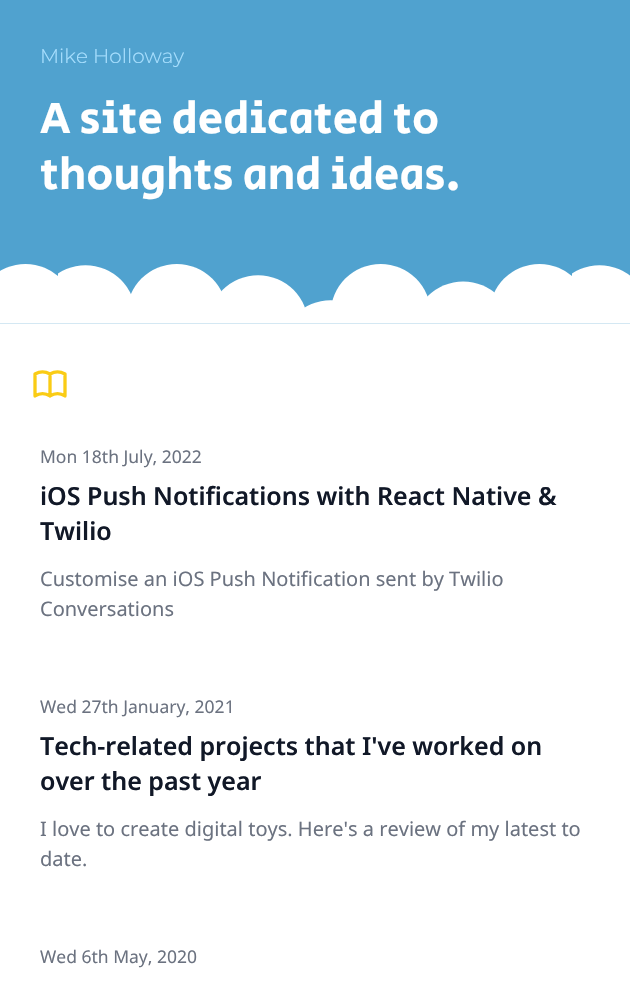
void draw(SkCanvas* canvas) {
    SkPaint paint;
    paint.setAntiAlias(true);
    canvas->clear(0xFFFFFFFF);
    paint.setColor(0xFF50A2CF);
    canvas->drawRect(SkRect::MakeXYWH(0, 0, 630, 324), paint);
    canvas->drawImageRect(SkImages::DeferredFromEncodedData(SkData::MakeFromFileName("img1.png")), SkRect::MakeXYWH(0, 264, 630, 60), SkSamplingOptions());
    SkFont font1(fontMgr->matchFamilyStyle("Montserrat", SkFontStyle(100, SkFontStyle::kNormal_Width, SkFontStyle::kUpright_Slant)), 20);
    font1.setSubpixel(true);
    paint.setColor(0xFFA9E0FF);
    canvas->drawString("Mike Holloway", 40, 63, font1, paint);
    SkFont font2(fontMgr->matchFamilyStyle("Secular One", SkFontStyle::Normal()), 45);
    font2.setSubpixel(true);
    paint.setColor(0xFFFFFFFF);
    canvas->drawString("A site dedicated to", 40, 133, font2, paint);
    canvas->drawString("thoughts and ideas.", 40, 189, font2, paint);
    paint.setStyle(SkPaint::kStroke_Style);
    paint.setStrokeWidth(3.3f);
    paint.setStrokeCap(SkPaint::kRound_Cap);
    paint.setStrokeJoin(SkPaint::kRound_Join);
    paint.setColor(0xFFFACC15);
    canvas->drawPath(SkPathBuilder().moveTo(50, 374).lineTo(50, 396).moveTo(50, 374).cubicTo(45.5f, 371.5f, 39.5f, 371.5f, 35, 374).lineTo(35, 396).cubicTo(39.5f, 393, 45.5f, 393, 50, 396).moveTo(50, 374).cubicTo(54.5f, 371.5f, 60.5f, 371.5f, 65, 374).lineTo(65, 396).cubicTo(60.5f, 393, 54.5f, 393, 50, 396).detach(), paint);
    SkFont font3(fontMgr->matchFamilyStyle("Noto Sans", SkFontStyle::Normal()), 17.5f);
    font3.setSubpixel(true);
    paint.setStyle(SkPaint::kFill_Style);
    paint.setColor(0xFF6B7280);
    canvas->drawString("Mon 18th July, 2022", 40, 463, font3, paint);
    SkFont font4(fontMgr->matchFamilyStyle("Noto Sans", SkFontStyle(600, SkFontStyle::kNormal_Width, SkFontStyle::kUpright_Slant)), 25);
    font4.setSubpixel(true);
    paint.setColor(0xFF111827);
    canvas->drawString("iOS Push Notifications with React Native &", 40, 505, font4, paint);
    canvas->drawString("Twilio", 40, 540, font4, paint);
    SkFont font5(fontMgr->matchFamilyStyle("Noto Sans", SkFontStyle::Normal()), 20);
    font5.setSubpixel(true);
    paint.setColor(0xFF6B7280);
    canvas->drawString("Customise an iOS Push Notification sent by Twilio", 40, 586, font5, paint);
    canvas->drawString("Conversations", 40, 616, font5, paint);
    canvas->drawString("Wed 27th January, 2021", 40, 713, font3, paint);
    paint.setColor(0xFF111827);
    canvas->drawString("Tech-related projects that I've worked on", 40, 755, font4, paint);
    canvas->drawString("over the past year", 40, 790, font4, paint);
    paint.setColor(0xFF6B7280);
    canvas->drawString("I love to create digital toys. Here's a review of my latest to", 40, 836, font5, paint);
    canvas->drawString("date.", 40, 866, font5, paint);
    canvas->drawString("Wed 6th May, 2020", 40, 963, font3, paint);
}
